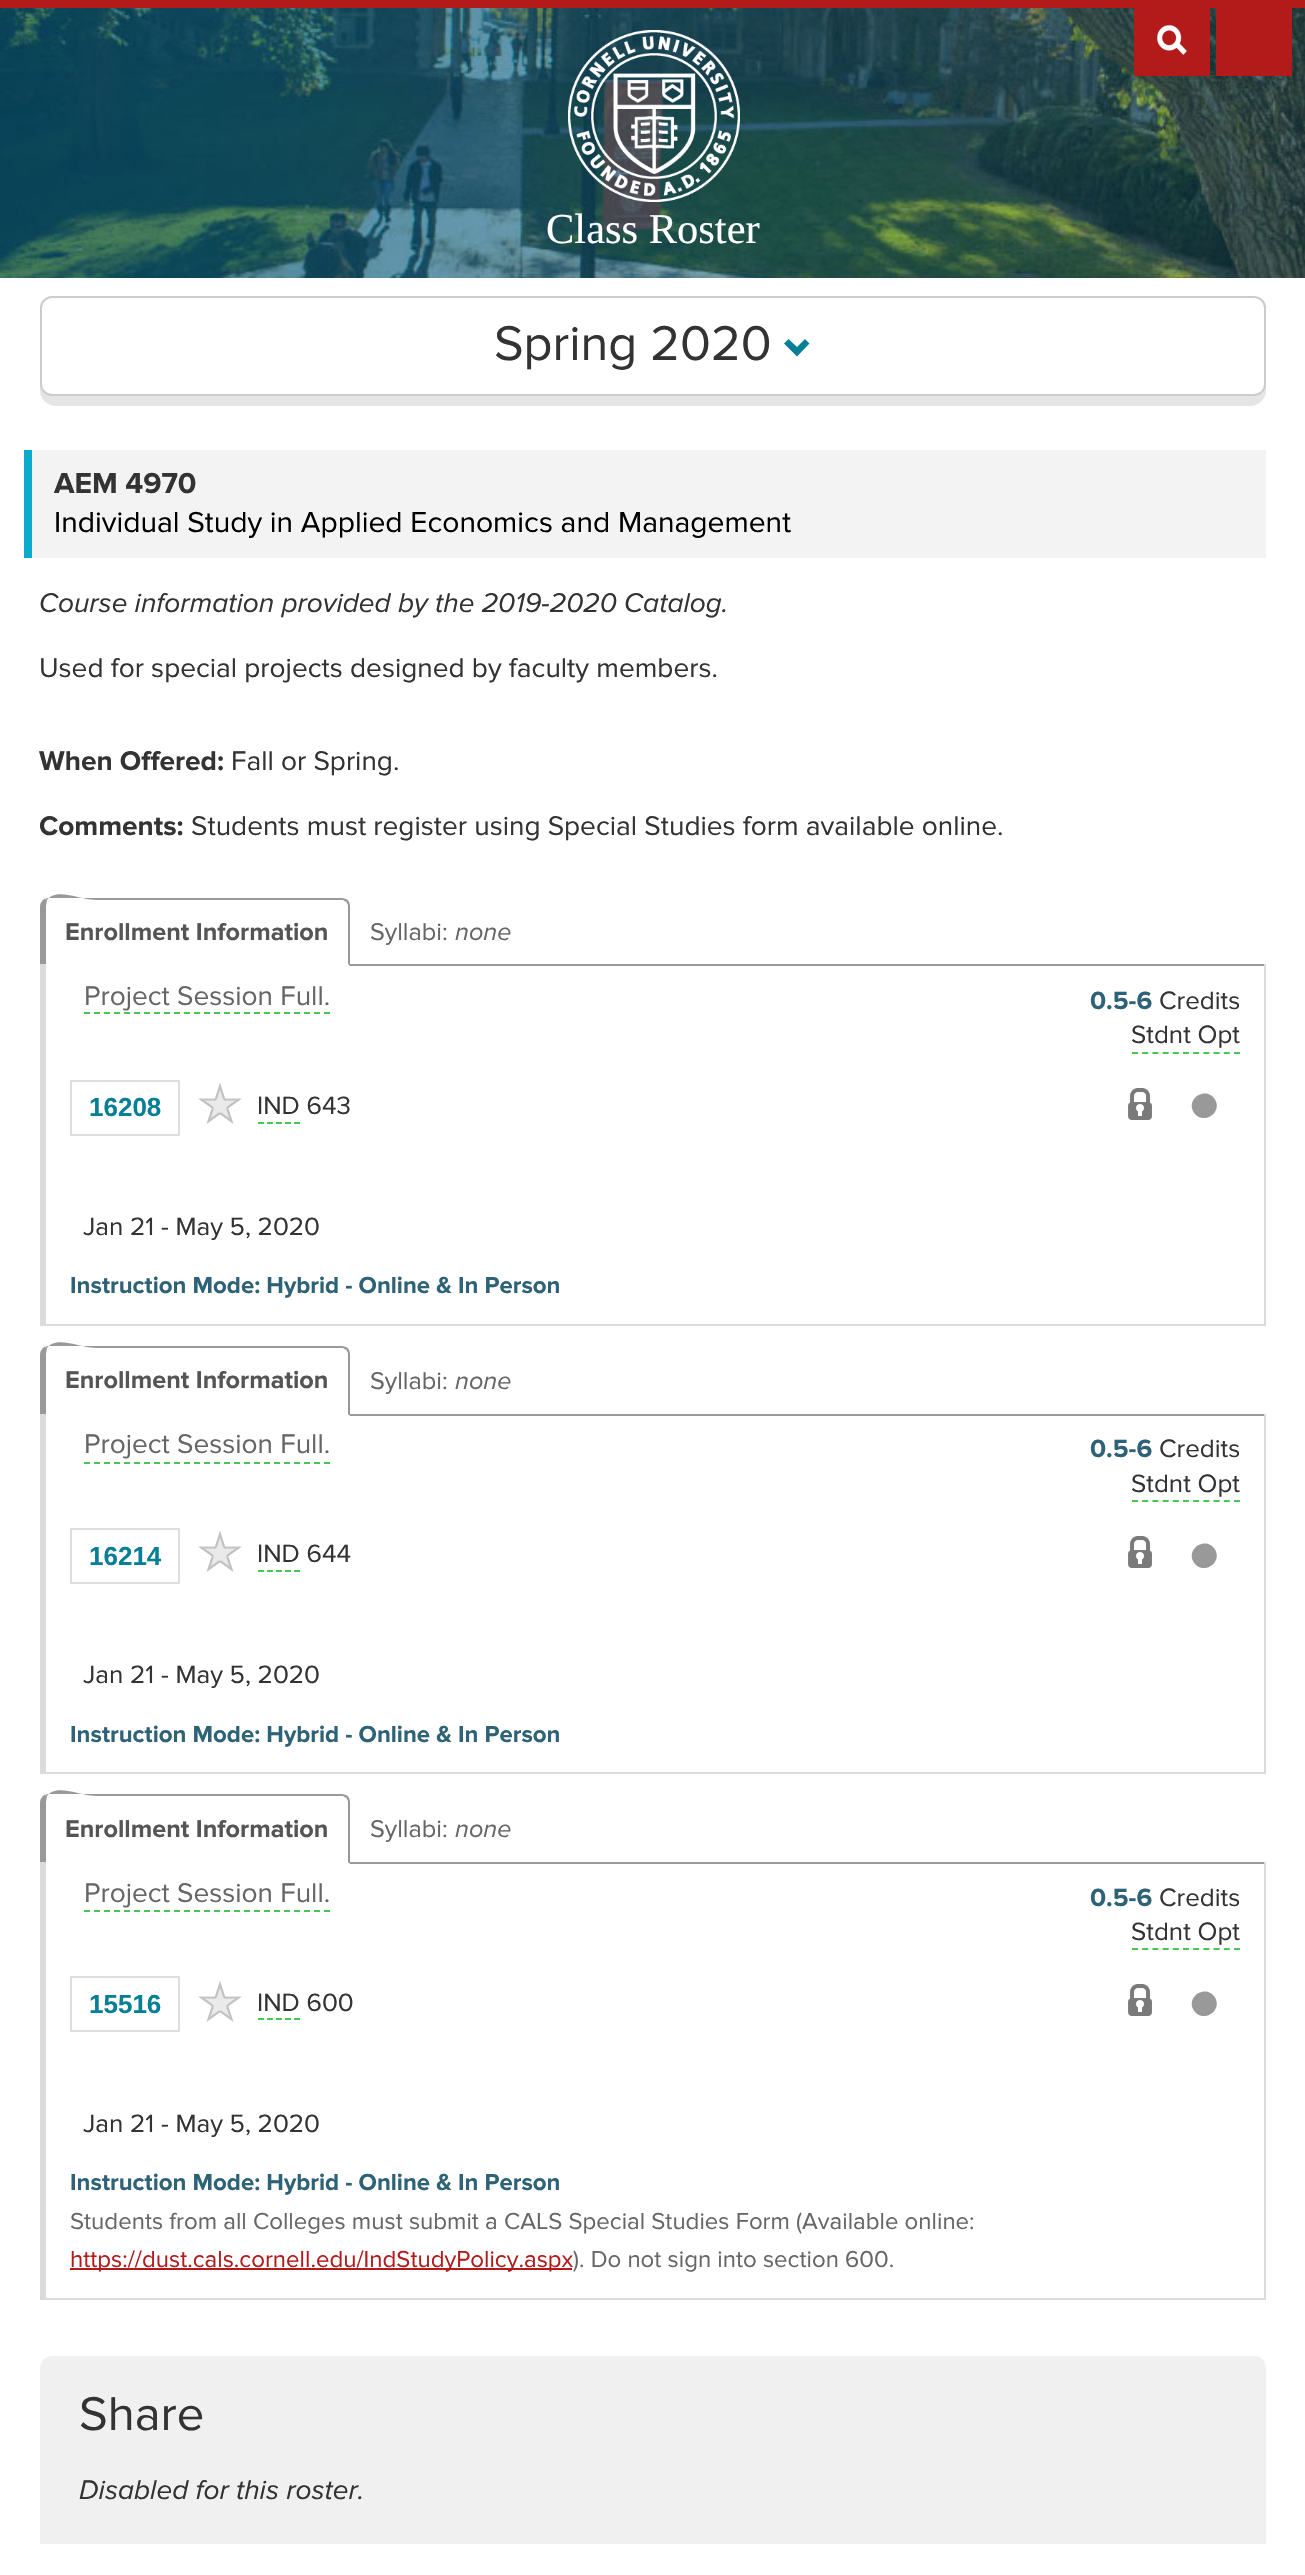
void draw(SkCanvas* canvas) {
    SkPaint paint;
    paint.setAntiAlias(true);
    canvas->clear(0xFFFFFFFF);
    canvas->drawImageRect(SkImages::DeferredFromEncodedData(SkData::MakeFromFileName("img1.png")), SkRect::MakeXYWH(0, 8, 1305, 270), SkSamplingOptions());
    paint.setColor(0xFFB31B1B);
    canvas->drawRect(SkRect::MakeXYWH(0, 0, 1305, 8), paint);
    canvas->drawImageRect(SkImages::DeferredFromEncodedData(SkData::MakeFromFileName("img2.png")), SkRect::MakeXYWH(568, 30, 172, 172), SkSamplingOptions());
    canvas->drawRect(SkRect::MakeXYWH(1134, 8, 76, 68), paint);
    canvas->drawImageRect(SkImages::DeferredFromEncodedData(SkData::MakeFromFileName("img3.png")), SkRect::MakeXYWH(1157, 25, 30, 30), SkSamplingOptions());
    canvas->drawRect(SkRect::MakeXYWH(1216, 8, 76, 68), paint);
    SkFont font1(fontMgr->matchFamilyStyle("Liberation Serif", SkFontStyle::Normal()), 42.5f);
    font1.setSubpixel(true);
    paint.setColor(0xFFFFFFFF);
    canvas->drawString("Class Roster", 546, 243, font1, paint);
    paint.setColor(0xFFE5E5E5);
    canvas->drawRoundRect(SkRect::MakeXYWH(40, 296, 1226, 110), 16, 16, paint);
    paint.setColor(0xFFFFFFFF);
    canvas->drawRoundRect(SkRect::MakeXYWH(40, 296, 1226, 100), 12, 12, paint);
    paint.setStyle(SkPaint::kStroke_Style);
    paint.setStrokeWidth(2);
    paint.setColor(0x33000000);
    canvas->drawRoundRect(SkRect::MakeXYWH(41, 297, 1224, 98), 11, 11, paint);
    SkFont font2(fontMgr->matchFamilyStyle("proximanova", SkFontStyle::Normal()), 50.5f);
    font2.setSubpixel(true);
    paint.setStyle(SkPaint::kFill_Style);
    paint.setColor(0xFF333333);
    canvas->drawString("Spring 2020", 494, 360, font2, paint);
    paint.setColor(0xFF077F97);
    canvas->drawPath(SkPathBuilder().moveTo(809.5f, 343.5f).lineTo(797, 356.5f).lineTo(784, 343.5f).lineTo(788.5f, 339).lineTo(797, 347).lineTo(805, 339).close().detach(), paint);
    paint.setColor(0xFFF3F3F3);
    canvas->drawRect(SkRect::MakeXYWH(32, 450, 1234, 108), paint);
    paint.setColor(0xFF0CABCD);
    canvas->drawRect(SkRect::MakeXYWH(24, 450, 8, 108), paint);
    SkFont font3(fontMgr->matchFamilyStyle("proximanova", SkFontStyle::Bold()), 30);
    font3.setSubpixel(true);
    paint.setColor(0xFF333333);
    canvas->drawString("AEM 4970", 54, 493, font3, paint);
    SkFont font4(fontMgr->matchFamilyStyle("proximanova", SkFontStyle::Normal()), 30);
    font4.setSubpixel(true);
    paint.setColor(0xFF000000);
    canvas->drawString("Individual Study in Applied Economics and Management", 54, 532, font4, paint);
    SkFont font5(fontMgr->matchFamilyStyle("proximanova", SkFontStyle::Italic()), 28);
    font5.setSubpixel(true);
    paint.setColor(0xFF333333);
    canvas->drawString("Course information provided by the 2019-2020 Catalog.", 39, 612, font5, paint);
    SkFont font6(fontMgr->matchFamilyStyle("proximanova", SkFontStyle::Normal()), 28);
    font6.setSubpixel(true);
    canvas->drawString("Used for special projects designed by faculty members.", 39, 677, font6, paint);
    SkFont font7(fontMgr->matchFamilyStyle("proximanova", SkFontStyle::Bold()), 28);
    font7.setSubpixel(true);
    canvas->drawString("When Offered:", 39, 770, font7, paint);
    canvas->drawString("Fall or Spring.", 231, 770, font6, paint);
    canvas->drawString("Comments:", 39, 835, font7, paint);
    canvas->drawString("Students must register using Special Studies form available online.", 191, 835, font6, paint);
    paint.setColor(0xFF999999);
    canvas->drawRect(SkRect::MakeXYWH(348, 964, 918, 2), paint);
    canvas->drawPath(SkPathBuilder().moveTo(48, 898).lineTo(44, 899).lineTo(47, 900).cubicTo(57, 887, 80, 900, 97, 900).lineTo(343, 900).lineTo(346, 902).lineTo(348, 900).cubicTo(346, 899, 344, 898, 342, 898).close().detach(), paint);
    canvas->drawPath(SkPathBuilder().moveTo(350, 966).lineTo(350, 906).cubicTo(350, 904, 349, 902, 348, 900).lineTo(346, 902).cubicTo(347, 903, 348, 904, 348, 906).lineTo(348, 964).close().detach(), paint);
    paint.setColor(0xFFFFFFFF);
    canvas->drawPath(SkPathBuilder().moveTo(350, 966).lineTo(348, 964).lineTo(46, 964).lineTo(40, 966).close().detach(), paint);
    paint.setColor(0xFF999999);
    canvas->drawPath(SkPathBuilder().moveTo(40, 966).lineTo(46, 964).lineTo(46, 906).cubicTo(46, 904, 47, 901, 47, 900).lineTo(44, 899).cubicTo(42, 901, 40, 903, 40, 906).close().detach(), paint);
    SkFont font8(fontMgr->matchFamilyStyle("proximanova", SkFontStyle::Bold()), 25.25f);
    font8.setSubpixel(true);
    paint.setColor(0xFF555555);
    canvas->drawString("Enrollment Information", 65, 940, font8, paint);
    SkFont font9(fontMgr->matchFamilyStyle("proximanova", SkFontStyle::Normal()), 25.25f);
    font9.setSubpixel(true);
    paint.setColor(0xFF666666);
    canvas->drawString("Syllabi:", 370, 940, font9, paint);
    SkFont font10(fontMgr->matchFamilyStyle("proximanova", SkFontStyle::Italic()), 25.25f);
    font10.setSubpixel(true);
    canvas->drawString("none", 455, 940, font10, paint);
    paint.setColor(0xFFDBDBDB);
    canvas->drawRect(SkRect::MakeXYWH(1264, 964, 2, 362), paint);
    canvas->drawRect(SkRect::MakeXYWH(40, 1324, 1226, 2), paint);
    canvas->drawRect(SkRect::MakeXYWH(40, 964, 6, 362), paint);
    paint.setColor(0xFF666666);
    canvas->drawString("Project Session Full.", 84, 1005, font6, paint);
    paint.setStyle(SkPaint::kStroke_Style);
    paint.setColor(0xFF46C753);
    paint.setPathEffect(SkDashPathEffect::Make({{6, 4}}, 0));
    canvas->drawPath(SkPathBuilder().moveTo(84, 1013).lineTo(330, 1013).detach(), paint);
    paint.setPathEffect(nullptr);
    SkFont font11(fontMgr->matchFamilyStyle("proximanova", SkFontStyle::Bold()), 26);
    font11.setSubpixel(true);
    paint.setStyle(SkPaint::kFill_Style);
    paint.setColor(0xFF2E6277);
    canvas->drawString("0.5-6", 1090, 1009, font11, paint);
    SkFont font12(fontMgr->matchFamilyStyle("proximanova", SkFontStyle::Normal()), 26);
    font12.setSubpixel(true);
    paint.setColor(0xFF333333);
    canvas->drawString("Credits", 1159, 1009, font12, paint);
    canvas->drawString("Stdnt Opt", 1131, 1043, font12, paint);
    paint.setStyle(SkPaint::kStroke_Style);
    paint.setColor(0xFF46C753);
    paint.setPathEffect(SkDashPathEffect::Make({{6, 4.2f}}, 0));
    canvas->drawPath(SkPathBuilder().moveTo(1132, 1053).lineTo(1240, 1053).detach(), paint);
    paint.setPathEffect(nullptr);
    paint.setColor(0xFFDEDEDE);
    canvas->drawRect(SkRect::MakeXYWH(71, 1081, 108, 54), paint);
    SkFont font13(fontMgr->matchFamilyStyle("Liberation Sans", SkFontStyle::Bold()), 26);
    font13.setSubpixel(true);
    paint.setStyle(SkPaint::kFill_Style);
    paint.setColor(0xFF077F97);
    canvas->drawString("16208", 89, 1116, font13, paint);
    canvas->drawImageRect(SkImages::DeferredFromEncodedData(SkData::MakeFromFileName("img4.png")), SkRect::MakeXYWH(198, 1083, 44, 41), SkSamplingOptions());
    paint.setColor(0xFF333333);
    canvas->drawString("IND 643", 257, 1114, font12, paint);
    paint.setStyle(SkPaint::kStroke_Style);
    paint.setColor(0xFF46C753);
    paint.setPathEffect(SkDashPathEffect::Make({{6, 3}}, 0));
    canvas->drawPath(SkPathBuilder().moveTo(258, 1123).lineTo(300, 1123).detach(), paint);
    paint.setPathEffect(nullptr);
    canvas->drawImageRect(SkImages::DeferredFromEncodedData(SkData::MakeFromFileName("img5.png")), SkRect::MakeXYWH(1128, 1088, 24, 32), SkSamplingOptions());
    paint.setStyle(SkPaint::kFill_Style);
    paint.setColor(0xFF999999);
    canvas->drawPath(SkPathBuilder().moveTo(1215, 1099.5f).cubicTo(1223, 1113.5f, 1202, 1126, 1193.5f, 1112).cubicTo(1185.5f, 1098, 1206.5f, 1085.5f, 1215, 1099.5f).close().detach(), paint);
    paint.setColor(0xFF333333);
    canvas->drawString("Jan 21 - May 5, 2020", 83, 1235, font12, paint);
    SkFont font14(fontMgr->matchFamilyStyle("proximanova", SkFontStyle::Bold()), 24);
    font14.setSubpixel(true);
    paint.setColor(0xFF2E6277);
    canvas->drawString("Instruction Mode: Hybrid - Online & In Person", 70, 1293, font14, paint);
    paint.setColor(0xFF999999);
    canvas->drawRect(SkRect::MakeXYWH(348, 1414, 918, 2), paint);
    canvas->drawPath(SkPathBuilder().moveTo(48, 1346).lineTo(44, 1347).lineTo(47, 1348).cubicTo(57, 1335, 80, 1348, 97, 1348).lineTo(343, 1348).lineTo(346, 1350).lineTo(348, 1348).cubicTo(346, 1347, 344, 1346, 342, 1346).close().detach(), paint);
    canvas->drawPath(SkPathBuilder().moveTo(350, 1416).lineTo(350, 1354).cubicTo(350, 1352, 349, 1350, 348, 1348).lineTo(346, 1350).cubicTo(347, 1351, 348, 1352, 348, 1354).lineTo(348, 1414).close().detach(), paint);
    paint.setColor(0xFFFFFFFF);
    canvas->drawPath(SkPathBuilder().moveTo(350, 1416).lineTo(348, 1414).lineTo(46, 1414).lineTo(40, 1416).close().detach(), paint);
    paint.setColor(0xFF999999);
    canvas->drawPath(SkPathBuilder().moveTo(40, 1416).lineTo(46, 1414).lineTo(46, 1354).cubicTo(46, 1352, 47, 1349, 47, 1348).lineTo(44, 1347).cubicTo(42, 1349, 40, 1351, 40, 1354).close().detach(), paint);
    paint.setColor(0xFF555555);
    canvas->drawString("Enrollment Information", 65, 1388, font8, paint);
    paint.setColor(0xFF666666);
    canvas->drawString("Syllabi:", 370, 1389, font9, paint);
    canvas->drawString("none", 455, 1389, font10, paint);
    paint.setColor(0xFFDBDBDB);
    canvas->drawRect(SkRect::MakeXYWH(1264, 1414, 2, 360), paint);
    canvas->drawRect(SkRect::MakeXYWH(40, 1772, 1226, 2), paint);
    canvas->drawRect(SkRect::MakeXYWH(40, 1414, 6, 360), paint);
    paint.setColor(0xFF666666);
    canvas->drawString("Project Session Full.", 84, 1453, font6, paint);
    paint.setStyle(SkPaint::kStroke_Style);
    paint.setColor(0xFF46C753);
    paint.setPathEffect(SkDashPathEffect::Make({{6, 4}}, 0));
    canvas->drawPath(SkPathBuilder().moveTo(84, 1463).lineTo(330, 1463).detach(), paint);
    paint.setPathEffect(nullptr);
    paint.setStyle(SkPaint::kFill_Style);
    paint.setColor(0xFF2E6277);
    canvas->drawString("0.5-6", 1090, 1457, font11, paint);
    paint.setColor(0xFF333333);
    canvas->drawString("Credits", 1159, 1457, font12, paint);
    canvas->drawString("Stdnt Opt", 1131, 1492, font12, paint);
    paint.setStyle(SkPaint::kStroke_Style);
    paint.setColor(0xFF46C753);
    paint.setPathEffect(SkDashPathEffect::Make({{6, 4.2f}}, 0));
    canvas->drawPath(SkPathBuilder().moveTo(1132, 1501).lineTo(1240, 1501).detach(), paint);
    paint.setPathEffect(nullptr);
    paint.setColor(0xFFDEDEDE);
    canvas->drawRect(SkRect::MakeXYWH(71, 1529, 108, 54), paint);
    paint.setStyle(SkPaint::kFill_Style);
    paint.setColor(0xFF077F97);
    canvas->drawString("16214", 89, 1565, font13, paint);
    canvas->drawImageRect(SkImages::DeferredFromEncodedData(SkData::MakeFromFileName("img4.png")), SkRect::MakeXYWH(198, 1531, 44, 41), SkSamplingOptions());
    paint.setColor(0xFF333333);
    canvas->drawString("IND 644", 257, 1562, font12, paint);
    paint.setStyle(SkPaint::kStroke_Style);
    paint.setColor(0xFF46C753);
    paint.setPathEffect(SkDashPathEffect::Make({{6, 3}}, 0));
    canvas->drawPath(SkPathBuilder().moveTo(258, 1571).lineTo(300, 1571).detach(), paint);
    paint.setPathEffect(nullptr);
    canvas->drawImageRect(SkImages::DeferredFromEncodedData(SkData::MakeFromFileName("img5.png")), SkRect::MakeXYWH(1128, 1536, 24, 32), SkSamplingOptions());
    paint.setStyle(SkPaint::kFill_Style);
    paint.setColor(0xFF999999);
    canvas->drawPath(SkPathBuilder().moveTo(1215, 1549.5f).cubicTo(1223, 1563.5f, 1202, 1576, 1193.5f, 1562).cubicTo(1185.5f, 1548, 1206.5f, 1535.5f, 1215, 1549.5f).close().detach(), paint);
    paint.setColor(0xFF333333);
    canvas->drawString("Jan 21 - May 5, 2020", 83, 1683, font12, paint);
    paint.setColor(0xFF2E6277);
    canvas->drawString("Instruction Mode: Hybrid - Online & In Person", 70, 1742, font14, paint);
    paint.setColor(0xFF999999);
    canvas->drawRect(SkRect::MakeXYWH(348, 1862, 918, 2), paint);
    canvas->drawPath(SkPathBuilder().moveTo(48, 1794).lineTo(44, 1795).lineTo(47, 1796).cubicTo(57, 1783, 80, 1796, 97, 1796).lineTo(343, 1796).lineTo(346, 1798).lineTo(348, 1796).cubicTo(346, 1795, 344, 1794, 342, 1794).close().detach(), paint);
    canvas->drawPath(SkPathBuilder().moveTo(350, 1864).lineTo(350, 1802).cubicTo(350, 1800, 349, 1798, 348, 1796).lineTo(346, 1798).cubicTo(347, 1799, 348, 1800, 348, 1802).lineTo(348, 1862).close().detach(), paint);
    paint.setColor(0xFFFFFFFF);
    canvas->drawPath(SkPathBuilder().moveTo(350, 1864).lineTo(348, 1862).lineTo(46, 1862).lineTo(40, 1864).close().detach(), paint);
    paint.setColor(0xFF999999);
    canvas->drawPath(SkPathBuilder().moveTo(40, 1864).lineTo(46, 1862).lineTo(46, 1802).cubicTo(46, 1800, 47, 1797, 47, 1796).lineTo(44, 1795).cubicTo(42, 1797, 40, 1799, 40, 1802).close().detach(), paint);
    paint.setColor(0xFF555555);
    canvas->drawString("Enrollment Information", 65, 1837, font8, paint);
    paint.setColor(0xFF666666);
    canvas->drawString("Syllabi:", 370, 1837, font9, paint);
    canvas->drawString("none", 455, 1837, font10, paint);
    paint.setColor(0xFFDBDBDB);
    canvas->drawRect(SkRect::MakeXYWH(1264, 1862, 2, 438), paint);
    canvas->drawRect(SkRect::MakeXYWH(40, 2298, 1226, 2), paint);
    canvas->drawRect(SkRect::MakeXYWH(40, 1862, 6, 438), paint);
    paint.setColor(0xFF666666);
    canvas->drawString("Project Session Full.", 84, 1902, font6, paint);
    paint.setStyle(SkPaint::kStroke_Style);
    paint.setColor(0xFF46C753);
    paint.setPathEffect(SkDashPathEffect::Make({{6, 4}}, 0));
    canvas->drawPath(SkPathBuilder().moveTo(84, 1911).lineTo(330, 1911).detach(), paint);
    paint.setPathEffect(nullptr);
    paint.setStyle(SkPaint::kFill_Style);
    paint.setColor(0xFF2E6277);
    canvas->drawString("0.5-6", 1090, 1906, font11, paint);
    paint.setColor(0xFF333333);
    canvas->drawString("Credits", 1159, 1906, font12, paint);
    canvas->drawString("Stdnt Opt", 1131, 1940, font12, paint);
    paint.setStyle(SkPaint::kStroke_Style);
    paint.setColor(0xFF46C753);
    paint.setPathEffect(SkDashPathEffect::Make({{6, 4.2f}}, 0));
    canvas->drawPath(SkPathBuilder().moveTo(1132, 1949).lineTo(1240, 1949).detach(), paint);
    paint.setPathEffect(nullptr);
    paint.setColor(0xFFDEDEDE);
    canvas->drawRect(SkRect::MakeXYWH(71, 1977, 108, 54), paint);
    paint.setStyle(SkPaint::kFill_Style);
    paint.setColor(0xFF077F97);
    canvas->drawString("15516", 89, 2013, font13, paint);
    canvas->drawImageRect(SkImages::DeferredFromEncodedData(SkData::MakeFromFileName("img4.png")), SkRect::MakeXYWH(198, 1981, 44, 41), SkSamplingOptions());
    paint.setColor(0xFF333333);
    canvas->drawString("IND 600", 257, 2011, font12, paint);
    paint.setStyle(SkPaint::kStroke_Style);
    paint.setColor(0xFF46C753);
    paint.setPathEffect(SkDashPathEffect::Make({{6, 3}}, 0));
    canvas->drawPath(SkPathBuilder().moveTo(258, 2019).lineTo(300, 2019).detach(), paint);
    paint.setPathEffect(nullptr);
    canvas->drawImageRect(SkImages::DeferredFromEncodedData(SkData::MakeFromFileName("img5.png")), SkRect::MakeXYWH(1128, 1984, 24, 32), SkSamplingOptions());
    paint.setStyle(SkPaint::kFill_Style);
    paint.setColor(0xFF999999);
    canvas->drawPath(SkPathBuilder().moveTo(1215, 1997.5f).cubicTo(1223, 2011.5f, 1202, 2024, 1193.5f, 2010).cubicTo(1185.5f, 1996, 1206.5f, 1983.5f, 1215, 1997.5f).close().detach(), paint);
    paint.setColor(0xFF333333);
    canvas->drawString("Jan 21 - May 5, 2020", 83, 2132, font12, paint);
    paint.setColor(0xFF2E6277);
    canvas->drawString("Instruction Mode: Hybrid - Online & In Person", 70, 2190, font14, paint);
    SkFont font15(fontMgr->matchFamilyStyle("proximanova", SkFontStyle::Normal()), 24);
    font15.setSubpixel(true);
    paint.setColor(0xFF666666);
    canvas->drawString("Students from all Colleges must submit a CALS Special Studies Form (Available online:", 70, 2229, font15, paint);
    paint.setColor(0xFFB31B1B);
    canvas->drawRect(SkRect::MakeXYWH(70, 2268, 502, 2), paint);
    canvas->drawString("https://dust.cals.cornell.edu/IndStudyPolicy.aspx", 70, 2267, font15, paint);
    paint.setColor(0xFF666666);
    canvas->drawString("). Do not sign into section 600.", 573, 2267, font15, paint);
    paint.setColor(0xFFF0F0F0);
    canvas->drawPath(SkPathBuilder().moveTo(52, 2356).lineTo(1254, 2356).cubicTo(1260.5f, 2356, 1266, 2361.5f, 1266, 2368).lineTo(1266, 2544).lineTo(40, 2544).lineTo(40, 2368).cubicTo(40, 2361.5f, 45.5f, 2356, 52, 2356).close().detach(), paint);
    SkFont font16(fontMgr->matchFamilyStyle("proximanova", SkFontStyle::Normal()), 49);
    font16.setSubpixel(true);
    paint.setColor(0xFF333333);
    canvas->drawString("Share", 79, 2430, font16, paint);
    canvas->drawString("Disabled for this roster.", 79, 2499, font5, paint);
}
